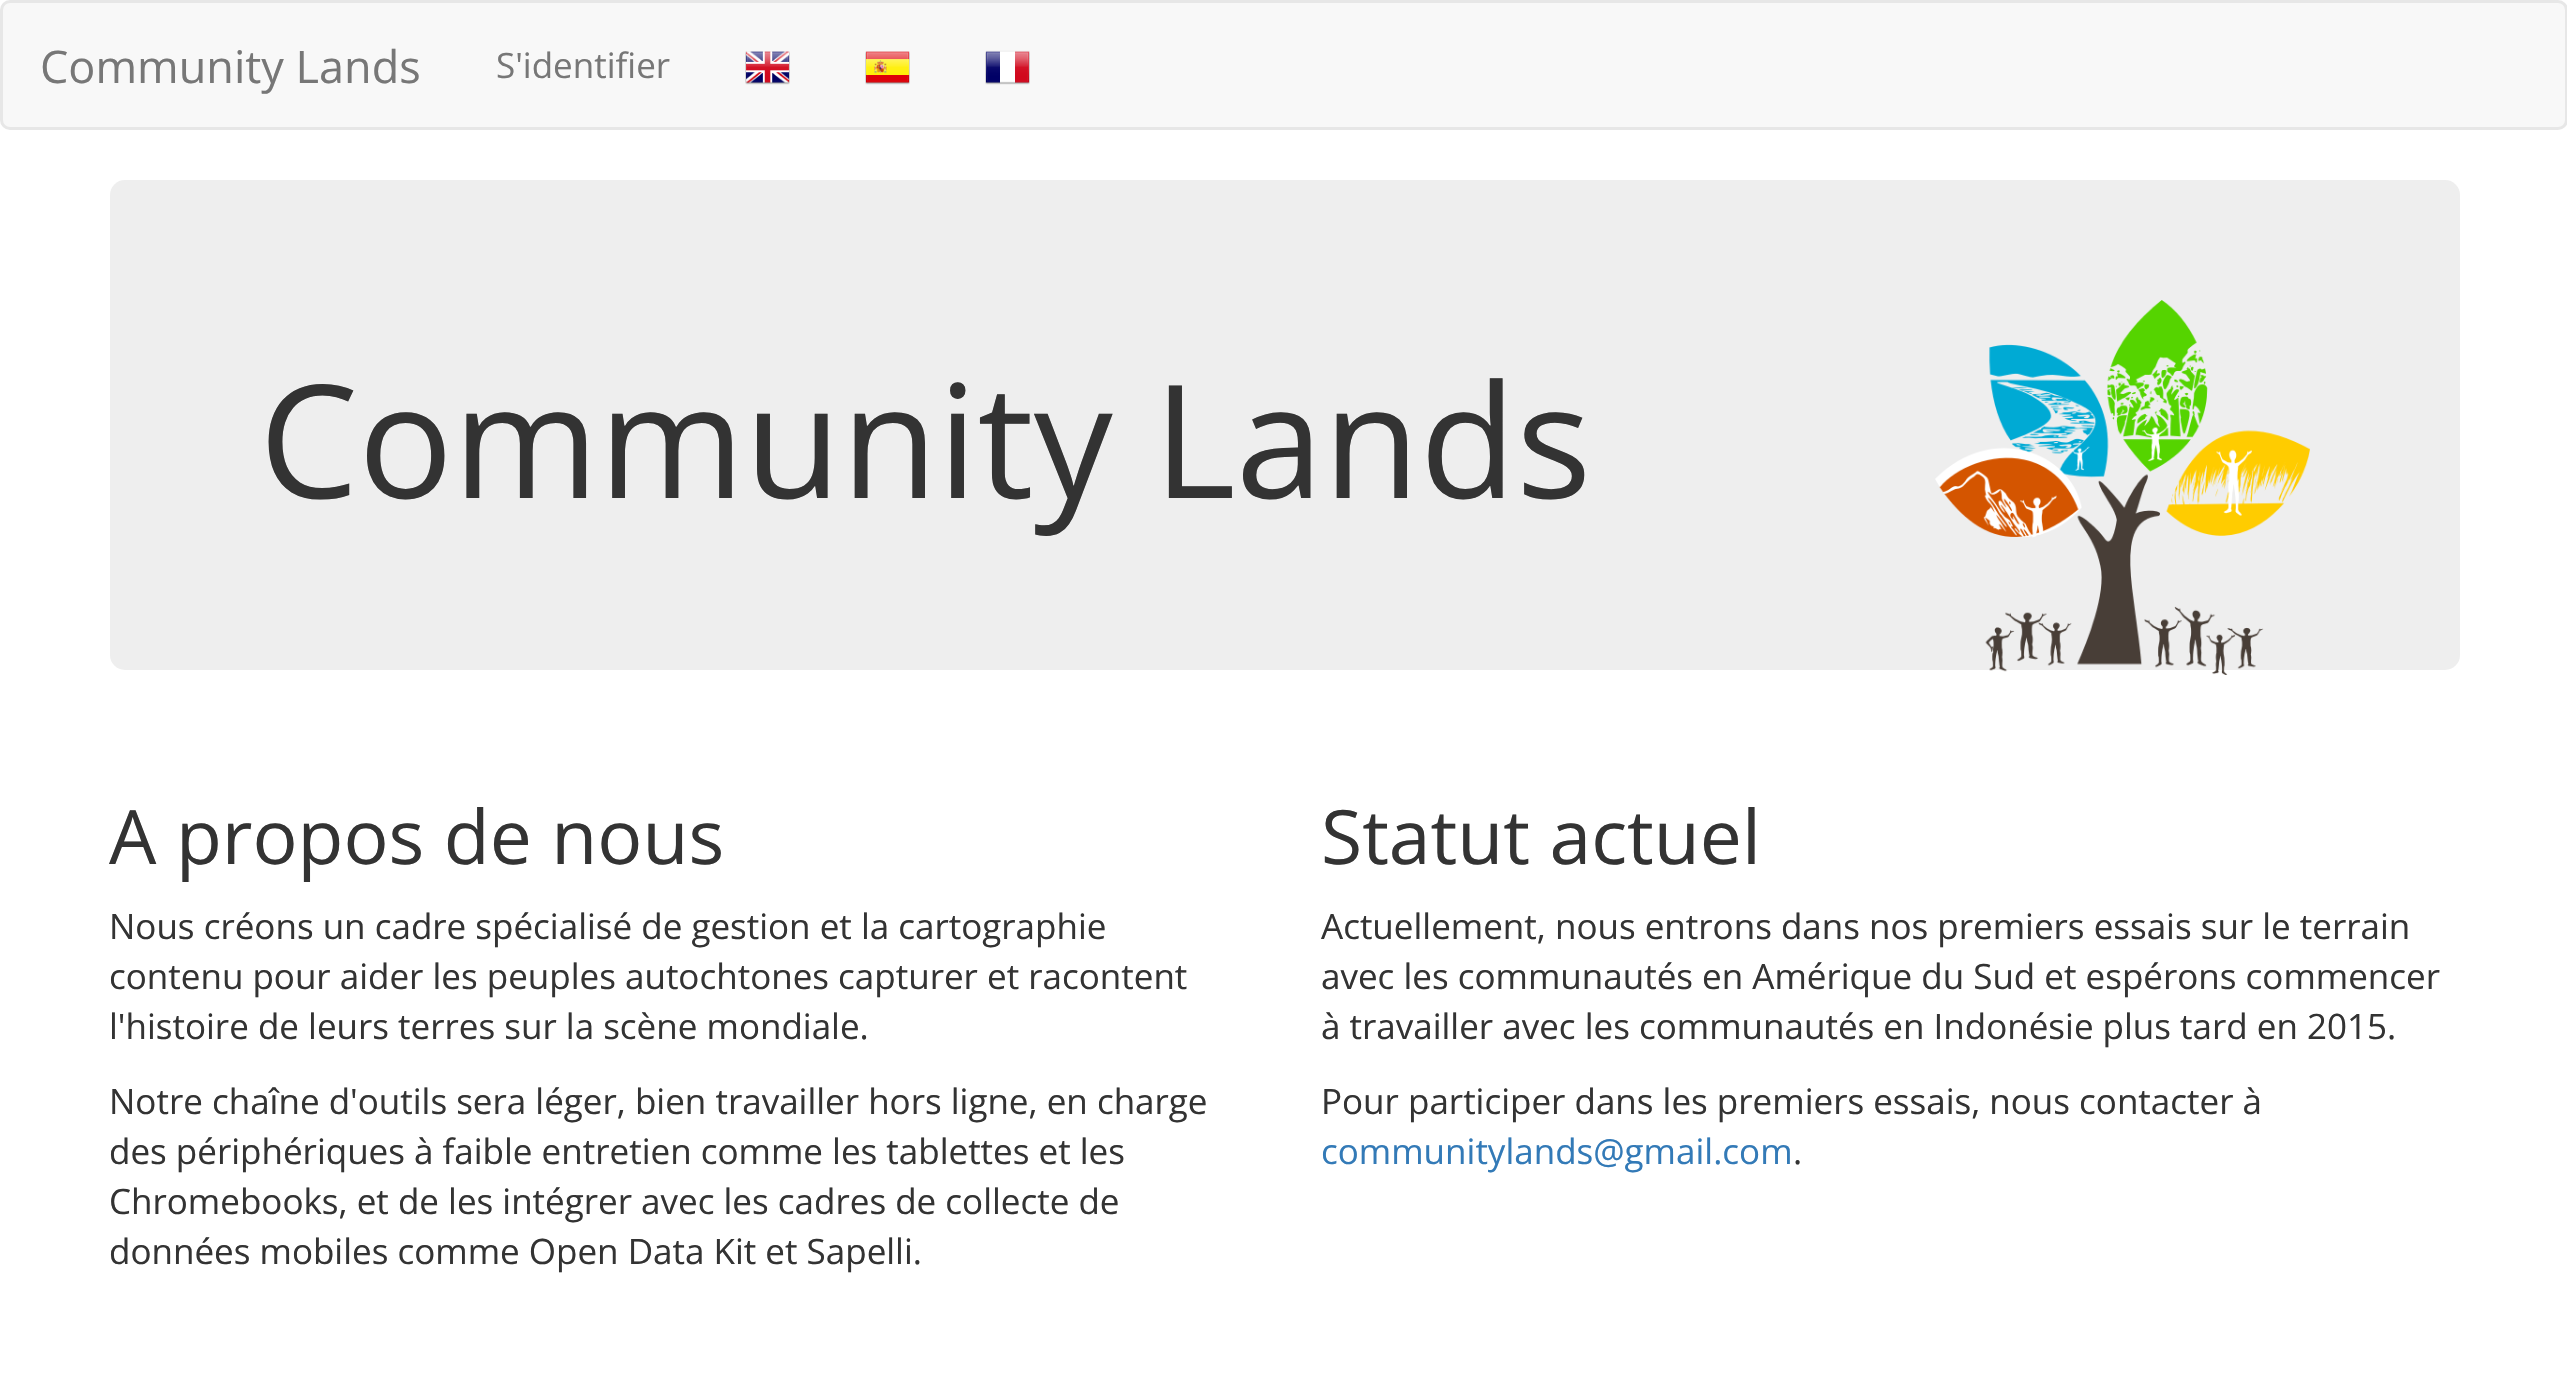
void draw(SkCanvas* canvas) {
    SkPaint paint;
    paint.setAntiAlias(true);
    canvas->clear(0xFFFFFFFF);
    paint.setColor(0xFFF8F8F8);
    canvas->drawRoundRect(SkRect::MakeXYWH(1.5f, 1.5f, 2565, 127), 8.5f, 8.5f, paint);
    paint.setStyle(SkPaint::kStroke_Style);
    paint.setStrokeWidth(3);
    paint.setColor(0xFFE7E7E7);
    canvas->drawRoundRect(SkRect::MakeXYWH(1.5f, 1.5f, 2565, 127), 8.5f, 8.5f, paint);
    SkFont font1(fontMgr->matchFamilyStyle("Open Sans", SkFontStyle::Normal()), 45);
    font1.setSubpixel(true);
    paint.setStyle(SkPaint::kFill_Style);
    paint.setColor(0xFF777777);
    canvas->drawString("Community Lands", 40, 83, font1, paint);
    SkFont font2(fontMgr->matchFamilyStyle("Open Sans", SkFontStyle::Normal()), 35);
    font2.setSubpixel(true);
    canvas->drawString("S'identifier", 496, 78, font2, paint);
    canvas->drawImageRect(SkImages::DeferredFromEncodedData(SkData::MakeFromFileName("img1.png")), SkRect::MakeXYWH(745, 51, 45, 34), SkSamplingOptions());
    canvas->drawImageRect(SkImages::DeferredFromEncodedData(SkData::MakeFromFileName("img2.png")), SkRect::MakeXYWH(865, 51, 45, 34), SkSamplingOptions());
    canvas->drawImageRect(SkImages::DeferredFromEncodedData(SkData::MakeFromFileName("img3.png")), SkRect::MakeXYWH(985, 50, 45, 35), SkSamplingOptions());
    paint.setColor(0xFFEEEEEE);
    canvas->drawRoundRect(SkRect::MakeXYWH(110, 180, 2350, 490), 15, 15, paint);
    SkFont font3(fontMgr->matchFamilyStyle("Open Sans", SkFontStyle::Normal()), 157.5f);
    font3.setSubpixel(true);
    paint.setColor(0xFF333333);
    canvas->drawString("Community Lands", 259, 498, font3, paint);
    canvas->drawImageRect(SkImages::DeferredFromEncodedData(SkData::MakeFromFileName("img4.png")), SkRect::MakeXYWH(1935, 300, 375, 375), SkSamplingOptions());
    SkFont font4(fontMgr->matchFamilyStyle("Open Sans", SkFontStyle::Normal()), 75);
    font4.setSubpixel(true);
    canvas->drawString("A propos de nous", 109, 864, font4, paint);
    canvas->drawString("Nous créons un cadre spécialisé de gestion et la cartographie", 109, 939, font2, paint);
    canvas->drawString("contenu pour aider les peuples autochtones capturer et racontent", 109, 989, font2, paint);
    canvas->drawString("l'histoire de leurs terres sur la scène mondiale.", 109, 1039, font2, paint);
    canvas->drawString("Notre chaîne d'outils sera léger, bien travailler hors ligne, en charge", 109, 1114, font2, paint);
    canvas->drawString("des périphériques à faible entretien comme les tablettes et les", 109, 1164, font2, paint);
    canvas->drawString("Chromebooks, et de les intégrer avec les cadres de collecte de", 109, 1214, font2, paint);
    canvas->drawString("données mobiles comme Open Data Kit et Sapelli.", 109, 1264, font2, paint);
    canvas->drawString("Statut actuel", 1321, 864, font4, paint);
    canvas->drawString("Actuellement, nous entrons dans nos premiers essais sur le terrain", 1321, 939, font2, paint);
    canvas->drawString("avec les communautés en Amérique du Sud et espérons commencer", 1321, 989, font2, paint);
    canvas->drawString("à travailler avec les communautés en Indonésie plus tard en 2015.", 1321, 1039, font2, paint);
    canvas->drawString("Pour participer dans les premiers essais, nous contacter à", 1321, 1114, font2, paint);
    paint.setColor(0xFF337AB7);
    canvas->drawString("communitylands@gmail.com", 1321, 1164, font2, paint);
    paint.setColor(0xFF333333);
    canvas->drawString(".", 1793, 1164, font2, paint);
}
